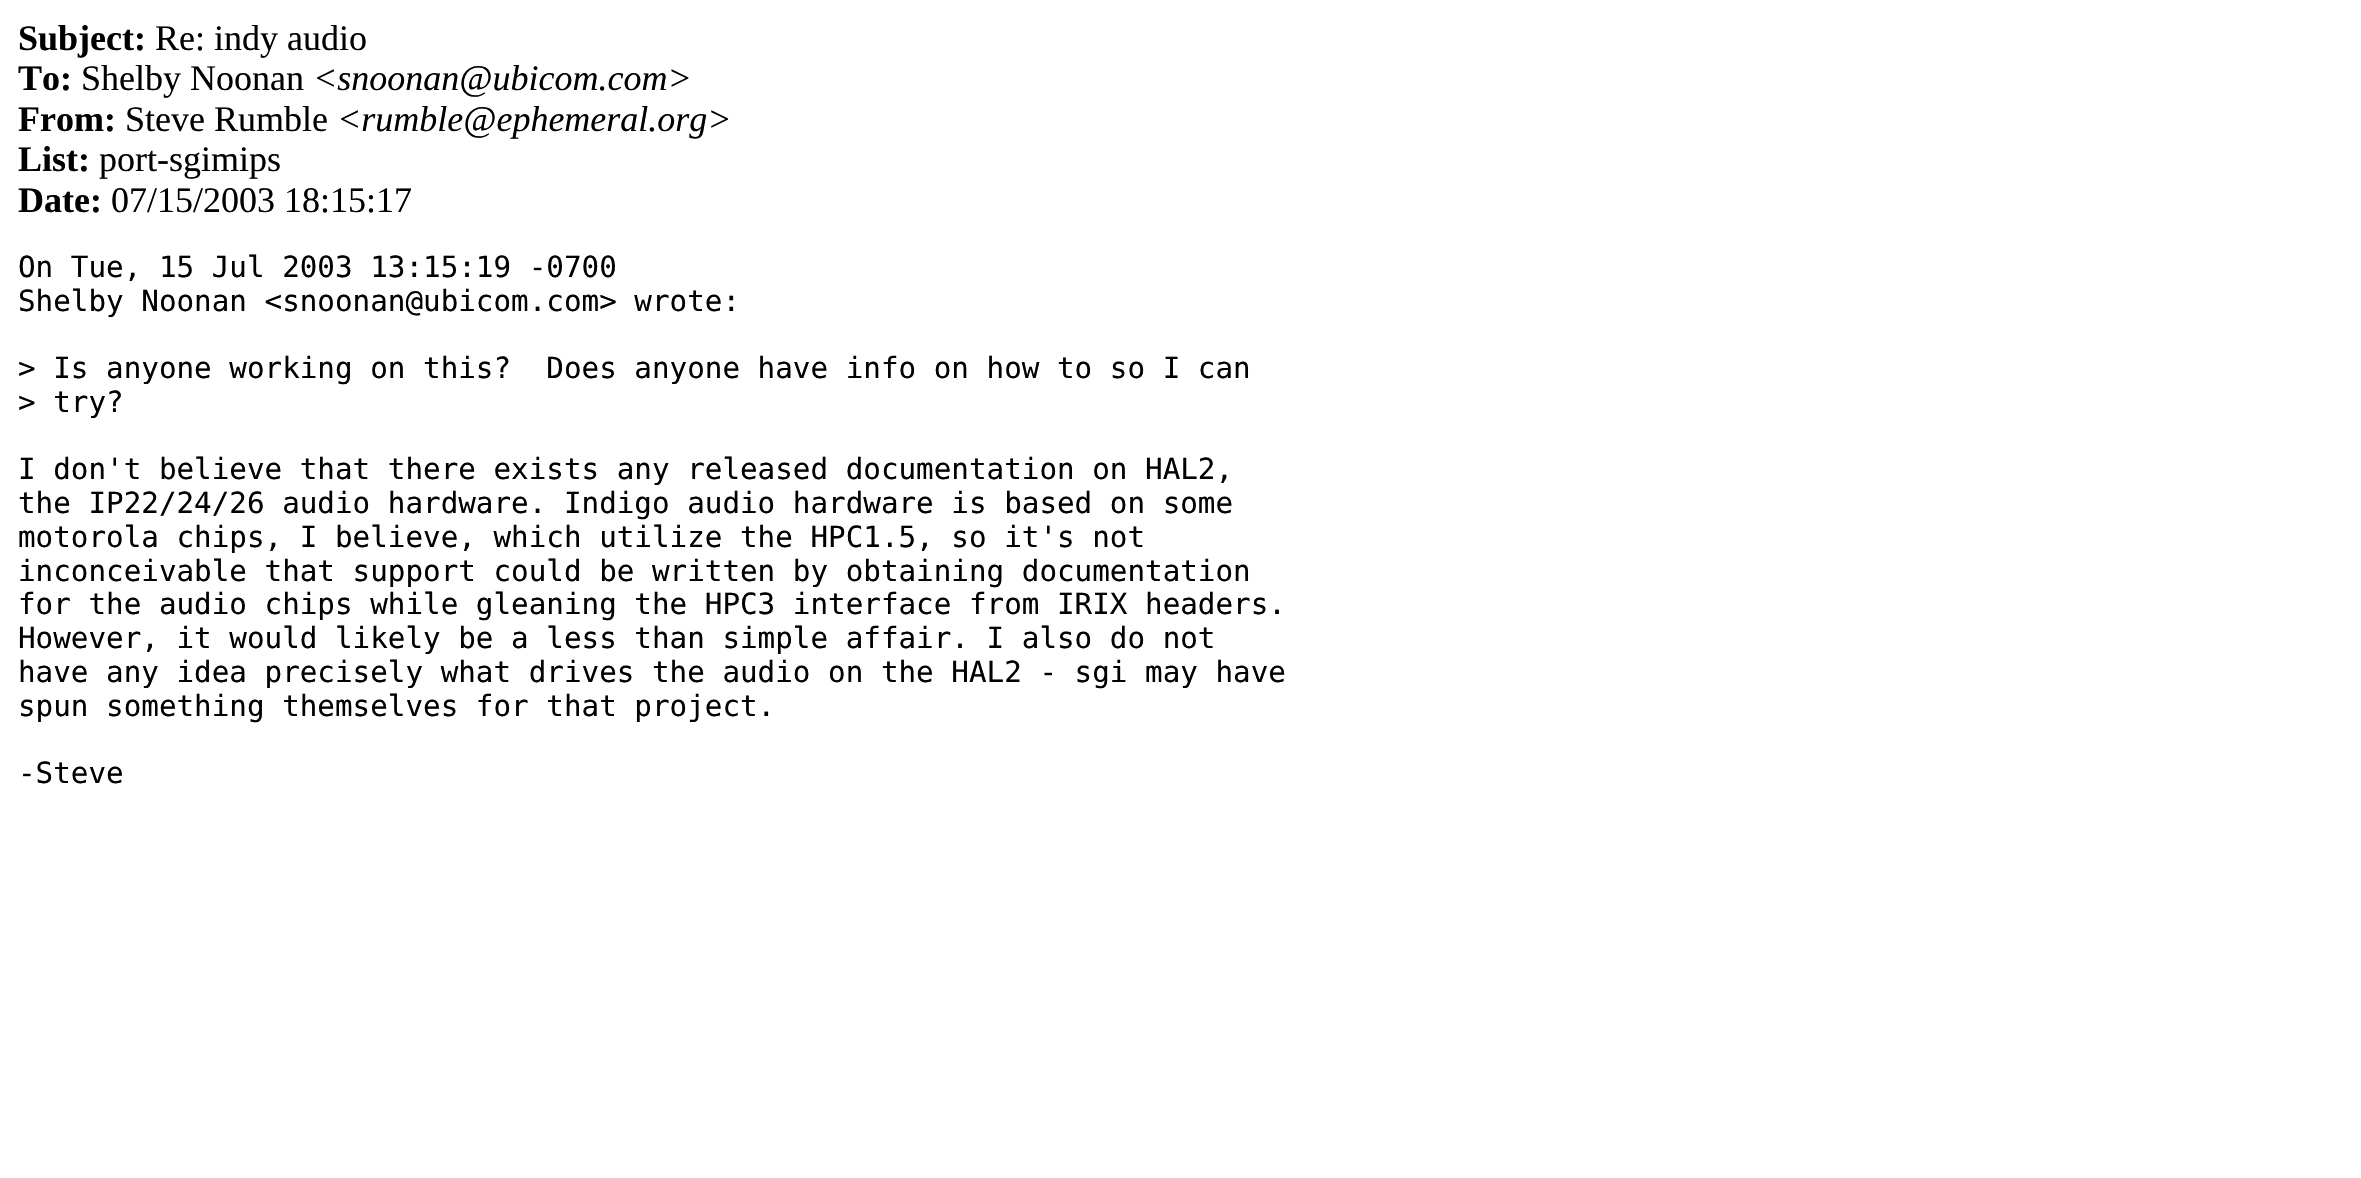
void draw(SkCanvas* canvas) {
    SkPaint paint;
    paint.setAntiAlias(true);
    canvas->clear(0xFFFFFFFF);
    SkFont font1(fontMgr->matchFamilyStyle("Liberation Serif", SkFontStyle::Bold()), 36);
    font1.setSubpixel(true);
    paint.setColor(0xFF000000);
    canvas->drawString("Subject:", 18, 50, font1, paint);
    SkFont font2(fontMgr->matchFamilyStyle("Liberation Serif", SkFontStyle::Normal()), 36);
    font2.setSubpixel(true);
    canvas->drawString("Re: indy audio", 155, 50, font2, paint);
    canvas->drawString("To:", 18, 90, font1, paint);
    canvas->drawString("Shelby Noonan", 81, 90, font2, paint);
    SkFont font3(fontMgr->matchFamilyStyle("Liberation Serif", SkFontStyle::Italic()), 36);
    font3.setSubpixel(true);
    canvas->drawString("<snoonan@ubicom.com>", 313, 90, font3, paint);
    canvas->drawString("From:", 18, 131, font1, paint);
    canvas->drawString("Steve Rumble", 125, 131, font2, paint);
    canvas->drawString("<rumble@ephemeral.org>", 337, 131, font3, paint);
    canvas->drawString("List:", 18, 171, font1, paint);
    canvas->drawString("port-sgimips", 99, 171, font2, paint);
    canvas->drawString("Date:", 18, 212, font1, paint);
    canvas->drawString("07/15/2003 18:15:17", 111, 212, font2, paint);
    SkFont font4(fontMgr->matchFamilyStyle("DejaVu Sans Mono", SkFontStyle::Normal()), 29.25f);
    font4.setSubpixel(true);
    canvas->drawString("On Tue, 15 Jul 2003 13:15:19 -0700", 18, 277, font4, paint);
    canvas->drawString("Shelby Noonan <snoonan@ubicom.com> wrote:", 18, 311, font4, paint);
    canvas->drawString("> Is anyone working on this?  Does anyone have info on how to so I can", 18, 378, font4, paint);
    canvas->drawString("> try?", 18, 412, font4, paint);
    canvas->drawString("I don't believe that there exists any released documentation on HAL2,", 18, 479, font4, paint);
    canvas->drawString("the IP22/24/26 audio hardware. Indigo audio hardware is based on some", 18, 513, font4, paint);
    canvas->drawString("motorola chips, I believe, which utilize the HPC1.5, so it's not", 18, 547, font4, paint);
    canvas->drawString("inconceivable that support could be written by obtaining documentation", 18, 581, font4, paint);
    canvas->drawString("for the audio chips while gleaning the HPC3 interface from IRIX headers.", 18, 614, font4, paint);
    canvas->drawString("However, it would likely be a less than simple affair. I also do not", 18, 648, font4, paint);
    canvas->drawString("have any idea precisely what drives the audio on the HAL2 - sgi may have", 18, 682, font4, paint);
    canvas->drawString("spun something themselves for that project.", 18, 716, font4, paint);
    canvas->drawString("-Steve", 18, 783, font4, paint);
}
